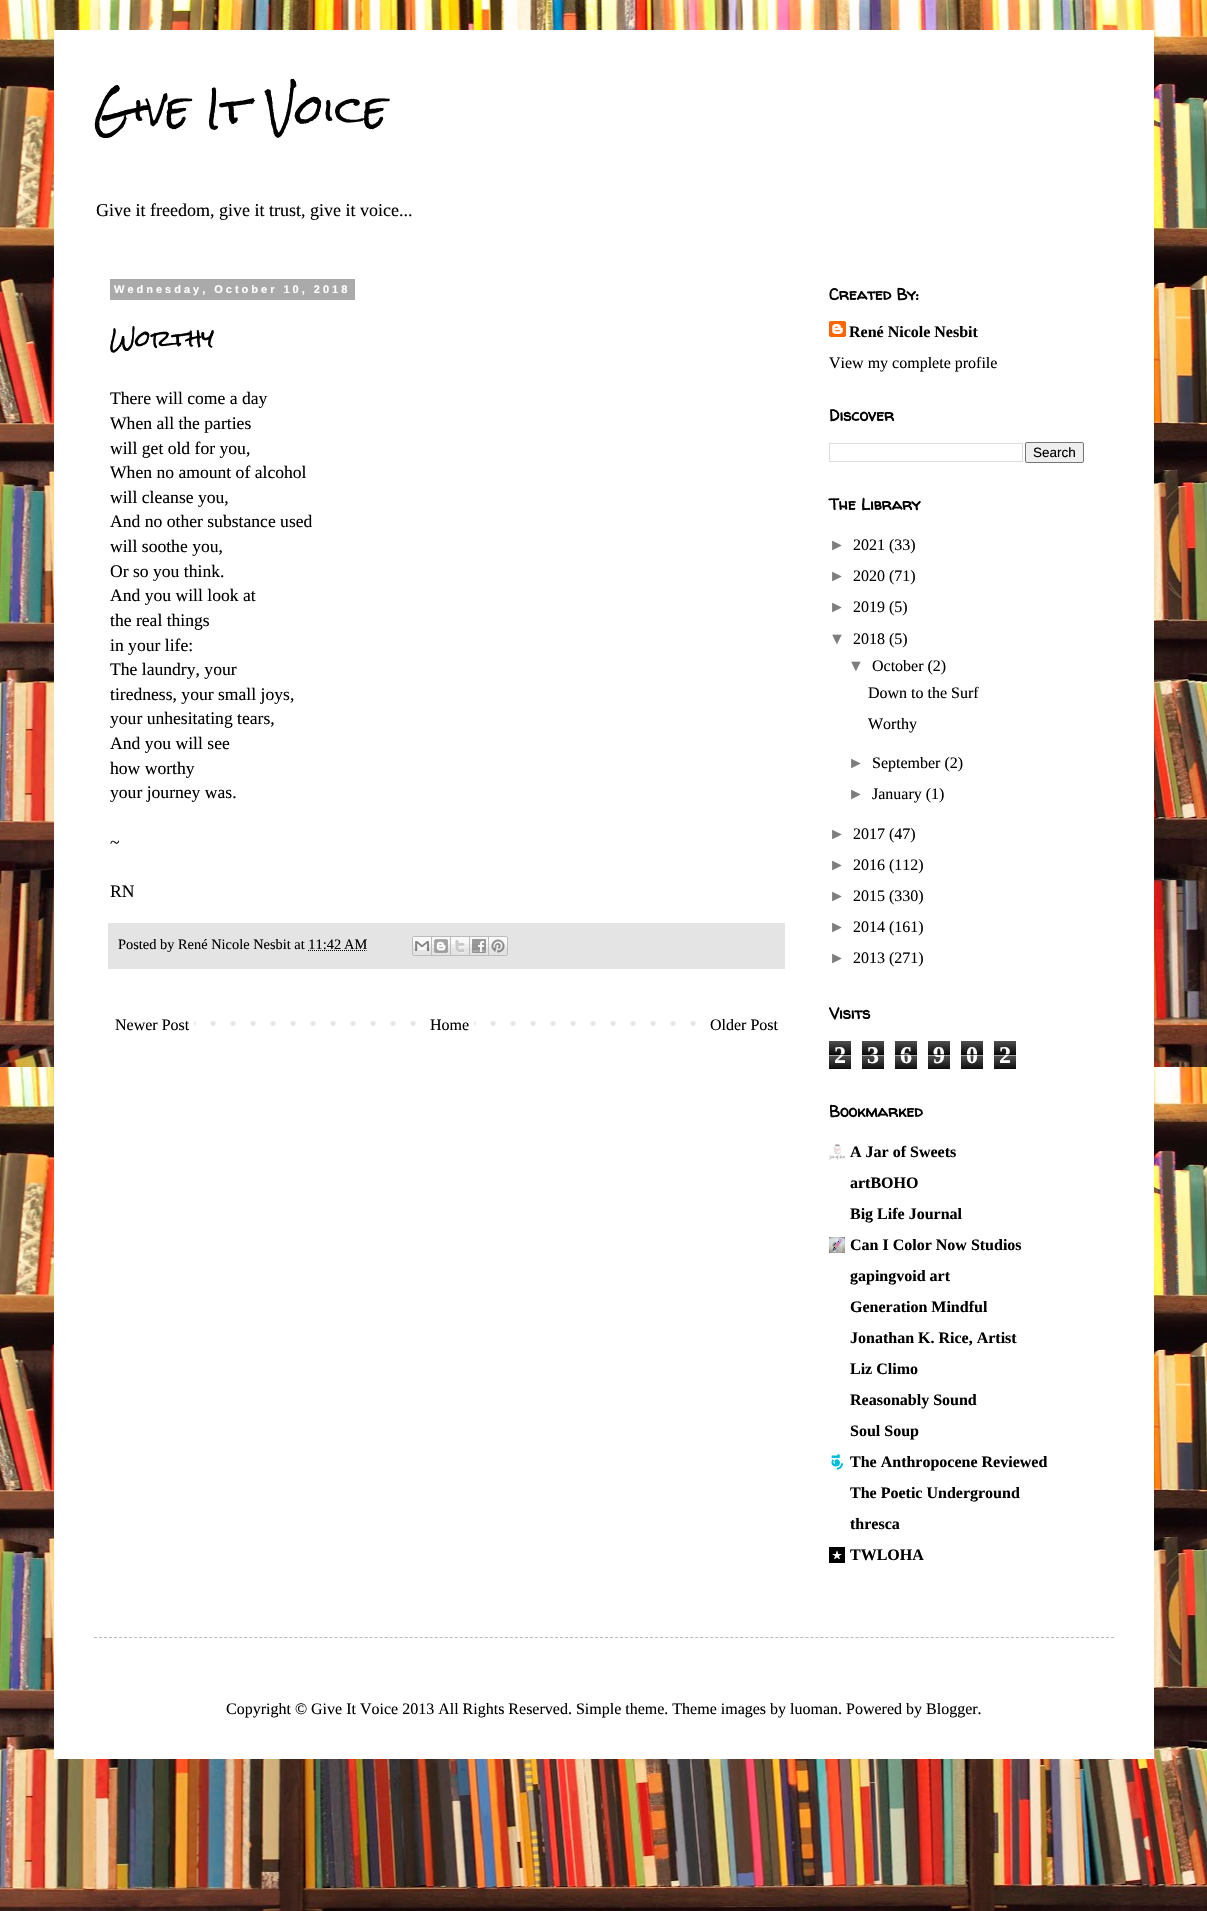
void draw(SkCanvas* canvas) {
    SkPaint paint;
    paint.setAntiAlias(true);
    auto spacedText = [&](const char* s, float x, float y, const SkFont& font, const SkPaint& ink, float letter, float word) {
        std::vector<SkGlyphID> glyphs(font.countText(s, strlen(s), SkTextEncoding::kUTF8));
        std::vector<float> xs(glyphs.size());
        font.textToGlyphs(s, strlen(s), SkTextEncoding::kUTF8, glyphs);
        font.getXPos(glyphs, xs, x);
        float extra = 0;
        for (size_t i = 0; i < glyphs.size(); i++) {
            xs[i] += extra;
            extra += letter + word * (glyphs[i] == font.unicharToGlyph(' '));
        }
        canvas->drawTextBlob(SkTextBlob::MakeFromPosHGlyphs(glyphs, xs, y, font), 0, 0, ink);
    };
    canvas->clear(0xFFFFFFFF);
    canvas->drawImageRect(SkImages::DeferredFromEncodedData(SkData::MakeFromFileName("img1.png")), SkRect::MakeXYWH(0, 0, 1207, 1911), SkSamplingOptions());
    paint.setColor(0xFFFFFFFF);
    canvas->drawRect(SkRect::MakeXYWH(54, 30, 1100, 1729), paint);
    SkFont font1(fontMgr->matchFamilyStyle("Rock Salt", SkFontStyle::Normal()), 40);
    font1.setSubpixel(true);
    paint.setColor(0xFF000000);
    canvas->drawString("Give It Voice", 94, 125, font1, paint);
    SkFont font2(fontMgr->matchFamilyStyle("Liberation Serif", SkFontStyle::Normal()), 18);
    font2.setSubpixel(true);
    canvas->drawString("Give it freedom, give it trust, give it voice...", 96, 216, font2, paint);
    paint.setColor(0xFFAAAAAA);
    canvas->drawRect(SkRect::MakeXYWH(110, 279, 245, 21), paint);
    SkFont font3(fontMgr->matchFamilyStyle("Liberation Sans", SkFontStyle::Bold()), 11);
    font3.setSubpixel(true);
    paint.setColor(0xFFFFFFFF);
    spacedText("Wednesday, October 10, 2018", 114, 293, font3, paint, 3, 0);
    SkFont font4(fontMgr->matchFamilyStyle("Rock Salt", SkFontStyle::Normal()), 22);
    font4.setSubpixel(true);
    paint.setColor(0xFF000000);
    canvas->drawString("Worthy", 110, 347, font4, paint);
    SkFont font5(fontMgr->matchFamilyStyle("Liberation Serif", SkFontStyle::Normal()), 17.6f);
    font5.setSubpixel(true);
    canvas->drawString("There will come a day", 110, 404, font5, paint);
    canvas->drawString("When all the parties", 110, 429, font5, paint);
    canvas->drawString("will get old for you,", 110, 454, font5, paint);
    canvas->drawString("When no amount of alcohol", 110, 478, font5, paint);
    canvas->drawString("will cleanse you,", 110, 503, font5, paint);
    canvas->drawString("And no other substance used", 110, 527, font5, paint);
    canvas->drawString("will soothe you,", 110, 552, font5, paint);
    canvas->drawString("Or so you think.", 110, 577, font5, paint);
    canvas->drawString("And you will look at", 110, 601, font5, paint);
    canvas->drawString("the real things", 110, 626, font5, paint);
    canvas->drawString("in your life:", 110, 651, font5, paint);
    canvas->drawString("The laundry, your", 110, 675, font5, paint);
    canvas->drawString("tiredness, your small joys,", 110, 700, font5, paint);
    canvas->drawString("your unhesitating tears,", 110, 724, font5, paint);
    canvas->drawString("And you will see", 110, 749, font5, paint);
    canvas->drawString("how worthy", 110, 774, font5, paint);
    canvas->drawString("your journey was.", 110, 798, font5, paint);
    canvas->drawString("~", 110, 848, font5, paint);
    canvas->drawString("RN", 110, 897, font5, paint);
    paint.setColor(0xFFE4E4E4);
    canvas->drawRect(SkRect::MakeXYWH(108, 923, 677, 46), paint);
    SkFont font6(fontMgr->matchFamilyStyle("Liberation Serif", SkFontStyle::Normal()), 14.4f);
    font6.setSubpixel(true);
    paint.setColor(0xFF000000);
    canvas->drawString("Posted by René Nicole Nesbit at 11:42 AM", 118, 949, font6, paint);
    canvas->drawImageRect(SkImages::DeferredFromEncodedData(SkData::MakeFromFileName("img2.png")), SkRect::MakeXYWH(412, 936, 20, 20), SkSamplingOptions());
    canvas->drawImageRect(SkImages::DeferredFromEncodedData(SkData::MakeFromFileName("img3.png")), SkRect::MakeXYWH(432, 936, 19, 20), SkSamplingOptions());
    canvas->drawImageRect(SkImages::DeferredFromEncodedData(SkData::MakeFromFileName("img4.png")), SkRect::MakeXYWH(451, 936, 19, 20), SkSamplingOptions());
    canvas->drawImageRect(SkImages::DeferredFromEncodedData(SkData::MakeFromFileName("img5.png")), SkRect::MakeXYWH(470, 936, 19, 20), SkSamplingOptions());
    canvas->drawImageRect(SkImages::DeferredFromEncodedData(SkData::MakeFromFileName("img6.png")), SkRect::MakeXYWH(489, 936, 19, 20), SkSamplingOptions());
    paint.setStyle(SkPaint::kStroke_Style);
    paint.setStrokeWidth(1);
    paint.setPathEffect(SkDashPathEffect::Make({{1, 1}}, 0));
    canvas->drawPath(SkPathBuilder().moveTo(308, 950.5f).lineTo(366.5f, 950.5f).detach(), paint);
    paint.setPathEffect(nullptr);
    canvas->drawImageRect(SkImages::DeferredFromEncodedData(SkData::MakeFromFileName("img7.png")), SkRect::MakeXYWH(194, 1021, 502, 5), SkSamplingOptions());
    SkFont font7(fontMgr->matchFamilyStyle("Liberation Serif", SkFontStyle::Normal()), 16);
    font7.setSubpixel(true);
    paint.setStyle(SkPaint::kFill_Style);
    canvas->drawString("Newer Post", 115, 1030, font7, paint);
    paint.setColor(0xFFFFFFFF);
    canvas->drawRect(SkRect::MakeXYWH(430, 1021, 44, 5), paint);
    paint.setColor(0xFF000000);
    canvas->drawString("Home", 430, 1030, font7, paint);
    canvas->drawString("Older Post", 710, 1030, font7, paint);
    SkFont font8(fontMgr->matchFamilyStyle("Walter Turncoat", SkFontStyle::Bold()), 16);
    font8.setSubpixel(true);
    canvas->drawString("Created By:", 829, 300, font8, paint);
    canvas->drawImageRect(SkImages::DeferredFromEncodedData(SkData::MakeFromFileName("img8.png")), SkRect::MakeXYWH(829, 321, 17, 16), SkSamplingOptions());
    SkFont font9(fontMgr->matchFamilyStyle("Liberation Serif", SkFontStyle::Bold()), 16);
    font9.setSubpixel(true);
    canvas->drawString("René Nicole Nesbit", 849, 337, font9, paint);
    canvas->drawString("View my complete profile", 829, 368, font7, paint);
    canvas->drawString("Discover", 829, 421, font8, paint);
    paint.setStyle(SkPaint::kStroke_Style);
    paint.setColor(0xFFDDDDDD);
    canvas->drawRect(SkRect::MakeXYWH(829.5f, 443.5f, 193, 18), paint);
    paint.setStyle(SkPaint::kFill_Style);
    paint.setColor(0xFFEFEFEF);
    canvas->drawRoundRect(SkRect::MakeXYWH(1025.5f, 442.5f, 58, 20), 1.5f, 1.5f, paint);
    paint.setStyle(SkPaint::kStroke_Style);
    paint.setColor(0xFF767676);
    canvas->drawRoundRect(SkRect::MakeXYWH(1025.5f, 442.5f, 58, 20), 1.5f, 1.5f, paint);
    SkFont font10(fontMgr->matchFamilyStyle("Liberation Sans", SkFontStyle::Normal()), 13.5f);
    font10.setSubpixel(true);
    paint.setStyle(SkPaint::kFill_Style);
    paint.setColor(0xFF000000);
    canvas->drawString("Search", 1033, 457, font10, paint);
    canvas->drawString("The Library", 829, 510, font8, paint);
    SkFont font11(fontMgr->matchFamilyStyle("Liberation Sans", SkFontStyle::Normal()), 16);
    font11.setSubpixel(true);
    paint.setColor(0xFF7E7E7E);
    canvas->drawString("►", 829, 550, font11, paint);
    paint.setColor(0xFF000000);
    canvas->drawString("2021 (33)", 853, 550, font7, paint);
    paint.setColor(0xFF7E7E7E);
    canvas->drawString("►", 829, 581, font11, paint);
    paint.setColor(0xFF000000);
    canvas->drawString("2020 (71)", 853, 581, font7, paint);
    paint.setColor(0xFF7E7E7E);
    canvas->drawString("►", 829, 612, font11, paint);
    paint.setColor(0xFF000000);
    canvas->drawString("2019 (5)", 853, 612, font7, paint);
    paint.setColor(0xFF7E7E7E);
    canvas->drawString("▼", 829, 644, font11, paint);
    paint.setColor(0xFF000000);
    canvas->drawString("2018 (5)", 853, 644, font7, paint);
    paint.setColor(0xFF7E7E7E);
    canvas->drawString("▼", 848, 671, font11, paint);
    paint.setColor(0xFF000000);
    canvas->drawString("October (2)", 872, 671, font7, paint);
    canvas->drawString("Down to the Surf", 868, 698, font7, paint);
    canvas->drawString("Worthy", 868, 729, font7, paint);
    paint.setColor(0xFF7E7E7E);
    canvas->drawString("►", 848, 768, font11, paint);
    paint.setColor(0xFF000000);
    canvas->drawString("September (2)", 872, 768, font7, paint);
    paint.setColor(0xFF7E7E7E);
    canvas->drawString("►", 848, 799, font11, paint);
    paint.setColor(0xFF000000);
    canvas->drawString("January (1)", 872, 799, font7, paint);
    paint.setColor(0xFF7E7E7E);
    canvas->drawString("►", 829, 839, font11, paint);
    paint.setColor(0xFF000000);
    canvas->drawString("2017 (47)", 853, 839, font7, paint);
    paint.setColor(0xFF7E7E7E);
    canvas->drawString("►", 829, 870, font11, paint);
    paint.setColor(0xFF000000);
    canvas->drawString("2016 (112)", 853, 870, font7, paint);
    paint.setColor(0xFF7E7E7E);
    canvas->drawString("►", 829, 901, font11, paint);
    paint.setColor(0xFF000000);
    canvas->drawString("2015 (330)", 853, 901, font7, paint);
    paint.setColor(0xFF7E7E7E);
    canvas->drawString("►", 829, 932, font11, paint);
    paint.setColor(0xFF000000);
    canvas->drawString("2014 (161)", 853, 932, font7, paint);
    paint.setColor(0xFF7E7E7E);
    canvas->drawString("►", 829, 963, font11, paint);
    paint.setColor(0xFF000000);
    canvas->drawString("2013 (271)", 853, 963, font7, paint);
    canvas->drawString("Visits", 829, 1019, font8, paint);
    canvas->drawImageRect(SkImages::DeferredFromEncodedData(SkData::MakeFromFileName("img9.png")), SkRect::MakeXYWH(829, 1041, 22, 28), SkSamplingOptions());
    SkFont font12(fontMgr->matchFamilyStyle("Liberation Serif", SkFontStyle::Bold()), 24);
    font12.setSubpixel(true);
    paint.setColor(0xFFFFFFFF);
    canvas->drawString("2", 834, 1063, font12, paint);
    paint.setColor(0xA6000000);
    canvas->drawRect(SkRect::MakeXYWH(829, 1054, 22, 1), paint);
    paint.setColor(0xA6FFFFFF);
    canvas->drawRect(SkRect::MakeXYWH(829, 1055, 22, 1), paint);
    canvas->drawImageRect(SkImages::DeferredFromEncodedData(SkData::MakeFromFileName("img9.png")), SkRect::MakeXYWH(862, 1041, 22, 28), SkSamplingOptions());
    paint.setColor(0xFFFFFFFF);
    canvas->drawString("3", 867, 1063, font12, paint);
    paint.setColor(0xA6000000);
    canvas->drawRect(SkRect::MakeXYWH(862, 1054, 22, 1), paint);
    paint.setColor(0xA6FFFFFF);
    canvas->drawRect(SkRect::MakeXYWH(862, 1055, 22, 1), paint);
    canvas->drawImageRect(SkImages::DeferredFromEncodedData(SkData::MakeFromFileName("img9.png")), SkRect::MakeXYWH(895, 1041, 22, 28), SkSamplingOptions());
    paint.setColor(0xFFFFFFFF);
    canvas->drawString("6", 900, 1063, font12, paint);
    paint.setColor(0xA6000000);
    canvas->drawRect(SkRect::MakeXYWH(895, 1054, 22, 1), paint);
    paint.setColor(0xA6FFFFFF);
    canvas->drawRect(SkRect::MakeXYWH(895, 1055, 22, 1), paint);
    canvas->drawImageRect(SkImages::DeferredFromEncodedData(SkData::MakeFromFileName("img9.png")), SkRect::MakeXYWH(928, 1041, 22, 28), SkSamplingOptions());
    paint.setColor(0xFFFFFFFF);
    canvas->drawString("9", 933, 1063, font12, paint);
    paint.setColor(0xA6000000);
    canvas->drawRect(SkRect::MakeXYWH(928, 1054, 22, 1), paint);
    paint.setColor(0xA6FFFFFF);
    canvas->drawRect(SkRect::MakeXYWH(928, 1055, 22, 1), paint);
    canvas->drawImageRect(SkImages::DeferredFromEncodedData(SkData::MakeFromFileName("img9.png")), SkRect::MakeXYWH(961, 1041, 22, 28), SkSamplingOptions());
    paint.setColor(0xFFFFFFFF);
    canvas->drawString("0", 966, 1063, font12, paint);
    paint.setColor(0xA6000000);
    canvas->drawRect(SkRect::MakeXYWH(961, 1054, 22, 1), paint);
    paint.setColor(0xA6FFFFFF);
    canvas->drawRect(SkRect::MakeXYWH(961, 1055, 22, 1), paint);
    canvas->drawImageRect(SkImages::DeferredFromEncodedData(SkData::MakeFromFileName("img9.png")), SkRect::MakeXYWH(994, 1041, 22, 28), SkSamplingOptions());
    paint.setColor(0xFFFFFFFF);
    canvas->drawString("2", 999, 1063, font12, paint);
    paint.setColor(0xA6000000);
    canvas->drawRect(SkRect::MakeXYWH(994, 1054, 22, 1), paint);
    paint.setColor(0xA6FFFFFF);
    canvas->drawRect(SkRect::MakeXYWH(994, 1055, 22, 1), paint);
    paint.setColor(0xFF000000);
    canvas->drawString("Bookmarked", 829, 1117, font8, paint);
    canvas->drawImageRect(SkImages::DeferredFromEncodedData(SkData::MakeFromFileName("img10.png")), SkRect::MakeXYWH(829, 1144, 16, 16), SkSamplingOptions());
    canvas->drawString("A Jar of Sweets", 850, 1157, font9, paint);
    canvas->drawString("artBOHO", 850, 1188, font9, paint);
    canvas->drawString("Big Life Journal", 850, 1219, font9, paint);
    canvas->drawImageRect(SkImages::DeferredFromEncodedData(SkData::MakeFromFileName("img11.png")), SkRect::MakeXYWH(829, 1237, 16, 16), SkSamplingOptions());
    canvas->drawString("Can I Color Now Studios", 850, 1250, font9, paint);
    canvas->drawString("gapingvoid art", 850, 1281, font9, paint);
    canvas->drawString("Generation Mindful", 850, 1312, font9, paint);
    canvas->drawString("Jonathan K. Rice, Artist", 850, 1343, font9, paint);
    canvas->drawString("Liz Climo", 850, 1374, font9, paint);
    canvas->drawString("Reasonably Sound", 850, 1405, font9, paint);
    canvas->drawString("Soul Soup", 850, 1436, font9, paint);
    canvas->drawImageRect(SkImages::DeferredFromEncodedData(SkData::MakeFromFileName("img12.png")), SkRect::MakeXYWH(831, 1454, 12, 16), SkSamplingOptions());
    canvas->drawString("The Anthropocene Reviewed", 850, 1467, font9, paint);
    canvas->drawString("The Poetic Underground", 850, 1498, font9, paint);
    canvas->drawString("thresca", 850, 1529, font9, paint);
    canvas->drawImageRect(SkImages::DeferredFromEncodedData(SkData::MakeFromFileName("img13.png")), SkRect::MakeXYWH(829, 1547, 16, 16), SkSamplingOptions());
    canvas->drawString("TWLOHA", 850, 1560, font9, paint);
    paint.setStyle(SkPaint::kStroke_Style);
    paint.setColor(0xFFBBBBBB);
    paint.setPathEffect(SkDashPathEffect::Make({{3, 2.01f}}, 0));
    canvas->drawPath(SkPathBuilder().moveTo(94, 1637.5f).lineTo(1114, 1637.5f).detach(), paint);
    paint.setPathEffect(nullptr);
    paint.setStyle(SkPaint::kFill_Style);
    paint.setColor(0xFF000000);
    canvas->drawString("Copyright © Give It Voice 2013 All Rights Reserved. Simple theme. Theme images by luoman. Powered by Blogger.", 226, 1714, font7, paint);
}
